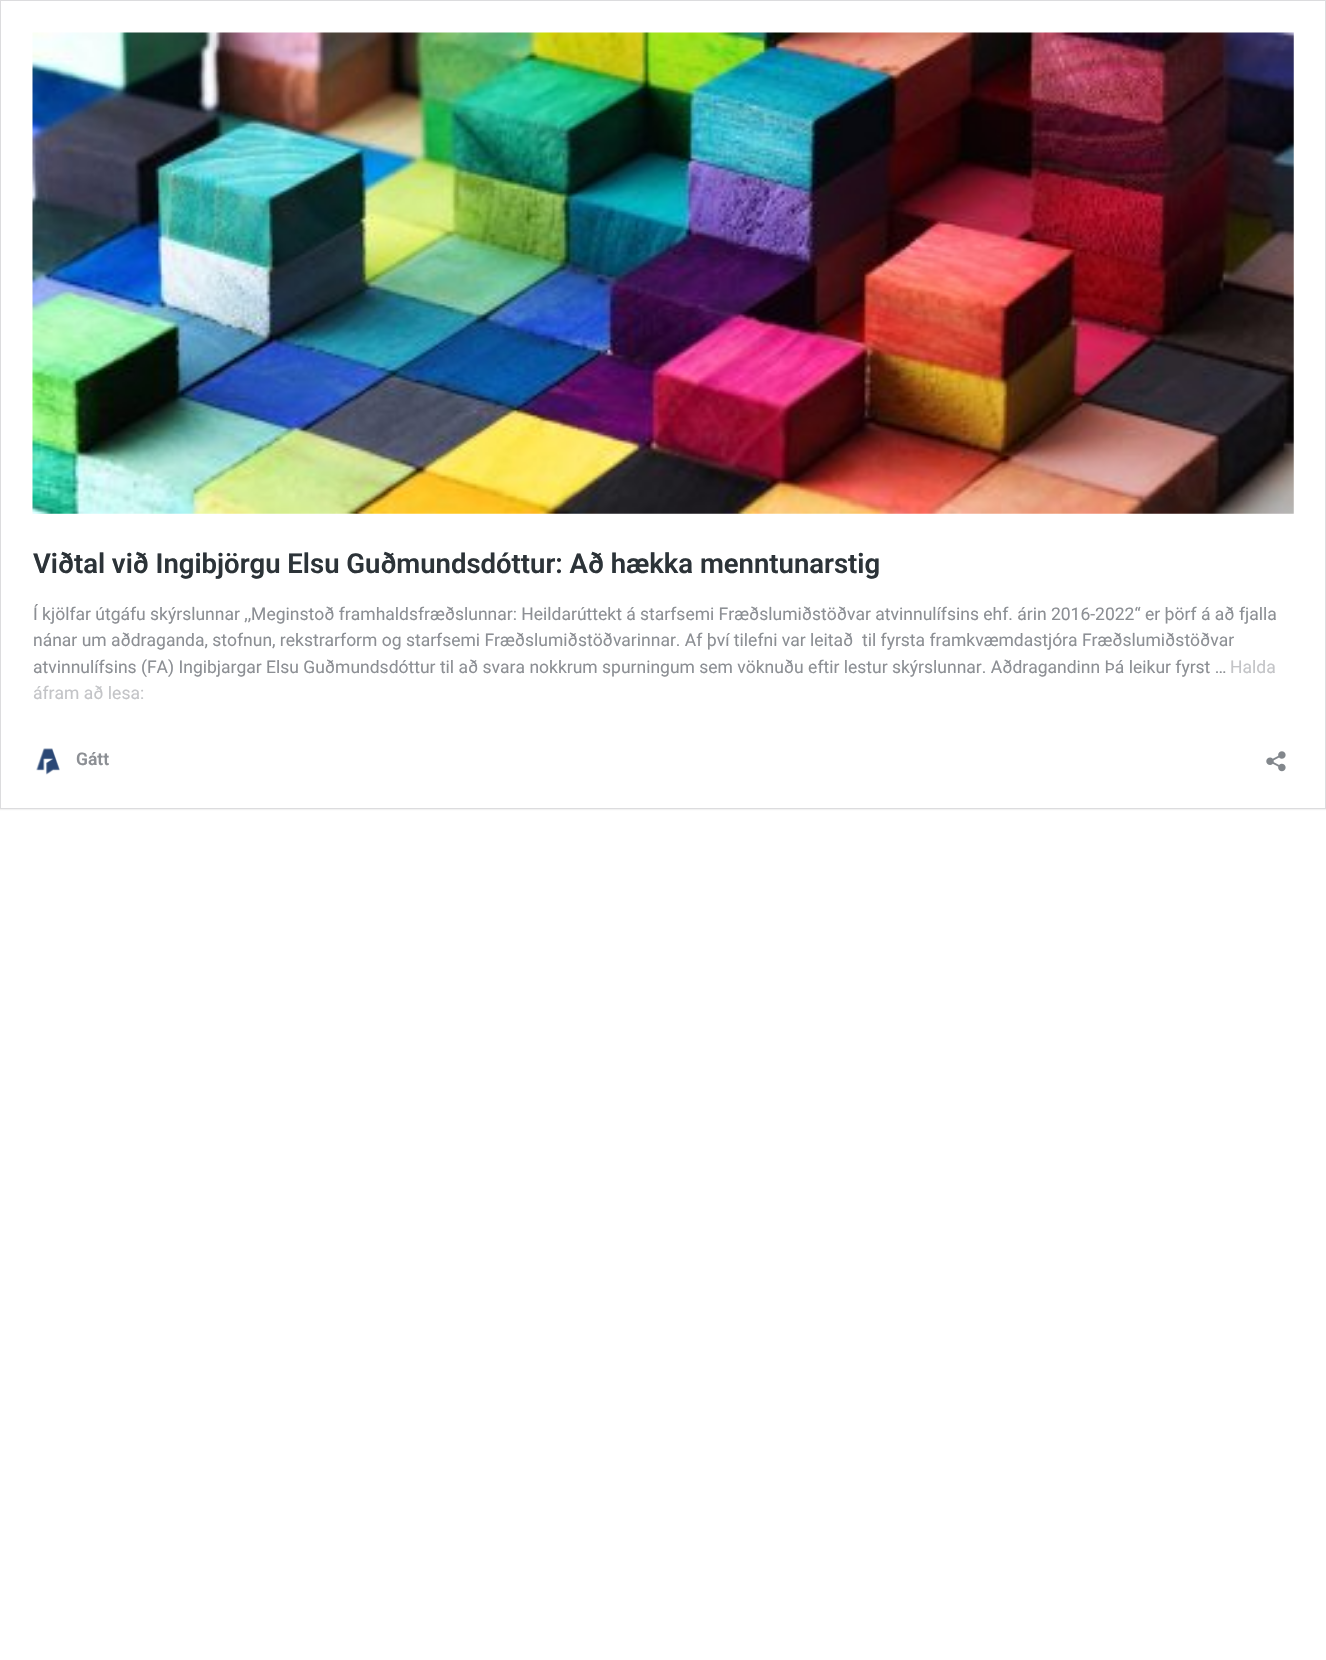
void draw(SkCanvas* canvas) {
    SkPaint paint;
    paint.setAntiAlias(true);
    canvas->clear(0xFFFFFFFF);
    paint.setColor(0x0D000000);
    paint.setMaskFilter(SkMaskFilter::MakeBlur(kNormal_SkBlurStyle, 0.5f));
    canvas->drawRect(SkRect::MakeXYWH(0, 1, 1326, 809), paint);
    paint.setMaskFilter(nullptr);
    paint.setColor(0xFFFFFFFF);
    canvas->drawRect(SkRect::MakeXYWH(0.5f, 0.5f, 1325, 808), paint);
    paint.setStyle(SkPaint::kStroke_Style);
    paint.setStrokeWidth(1);
    paint.setColor(0xFFDCDCDE);
    canvas->drawRect(SkRect::MakeXYWH(0.5f, 0.5f, 1325, 808), paint);
    canvas->drawImageRect(SkImages::DeferredFromEncodedData(SkData::MakeFromFileName("img1.png")), SkRect::MakeXYWH(32, 32, 1262, 482), SkSamplingOptions());
    SkFont font1(fontMgr->matchFamilyStyle("Roboto", SkFontStyle(600, SkFontStyle::kNormal_Width, SkFontStyle::kUpright_Slant)), 27.5f);
    font1.setSubpixel(true);
    paint.setStyle(SkPaint::kFill_Style);
    paint.setColor(0xFF2C3338);
    canvas->drawString("Viðtal við Ingibjörgu Elsu Guðmundsdóttur: Að hækka menntunarstig", 33, 573, font1, paint);
    SkFont font2(fontMgr->matchFamilyStyle("Roboto", SkFontStyle::Normal()), 17.5f);
    font2.setSubpixel(true);
    paint.setColor(0xFF8C8F94);
    canvas->drawString("Í kjölfar útgáfu skýrslunnar ,,Meginstoð framhaldsfræðslunnar: Heildarúttekt á starfsemi Fræðslumiðstöðvar atvinnulífsins ehf. árin 2016-2022“ er þörf á að fjalla", 33, 620, font2, paint);
    canvas->drawString("nánar um aðdraganda, stofnun, rekstrarform og starfsemi Fræðslumiðstöðvarinnar. Af því tilefni var leitað  til fyrsta framkvæmdastjóra Fræðslumiðstöðvar", 33, 646, font2, paint);
    canvas->drawString("atvinnulífsins (FA) Ingibjargar Elsu Guðmundsdóttur til að svara nokkrum spurningum sem vöknuðu eftir lestur skýrslunnar. Aðdragandinn Þá leikur fyrst …", 33, 673, font2, paint);
    paint.setColor(0xFFC3C4C7);
    canvas->drawString("Halda", 1230, 673, font2, paint);
    canvas->drawString("áfram að lesa:", 33, 699, font2, paint);
    canvas->drawImageRect(SkImages::DeferredFromEncodedData(SkData::MakeFromFileName("img2.png")), SkRect::MakeXYWH(36, 748, 24, 27), SkSamplingOptions());
    SkFont font3(fontMgr->matchFamilyStyle("Roboto", SkFontStyle(600, SkFontStyle::kNormal_Width, SkFontStyle::kUpright_Slant)), 17.5f);
    font3.setSubpixel(true);
    paint.setColor(0xFF8C8F94);
    canvas->drawString("Gátt", 76, 765, font3, paint);
    canvas->drawImageRect(SkImages::DeferredFromEncodedData(SkData::MakeFromFileName("img3.png")), SkRect::MakeXYWH(1266, 751, 20, 21), SkSamplingOptions());
}
